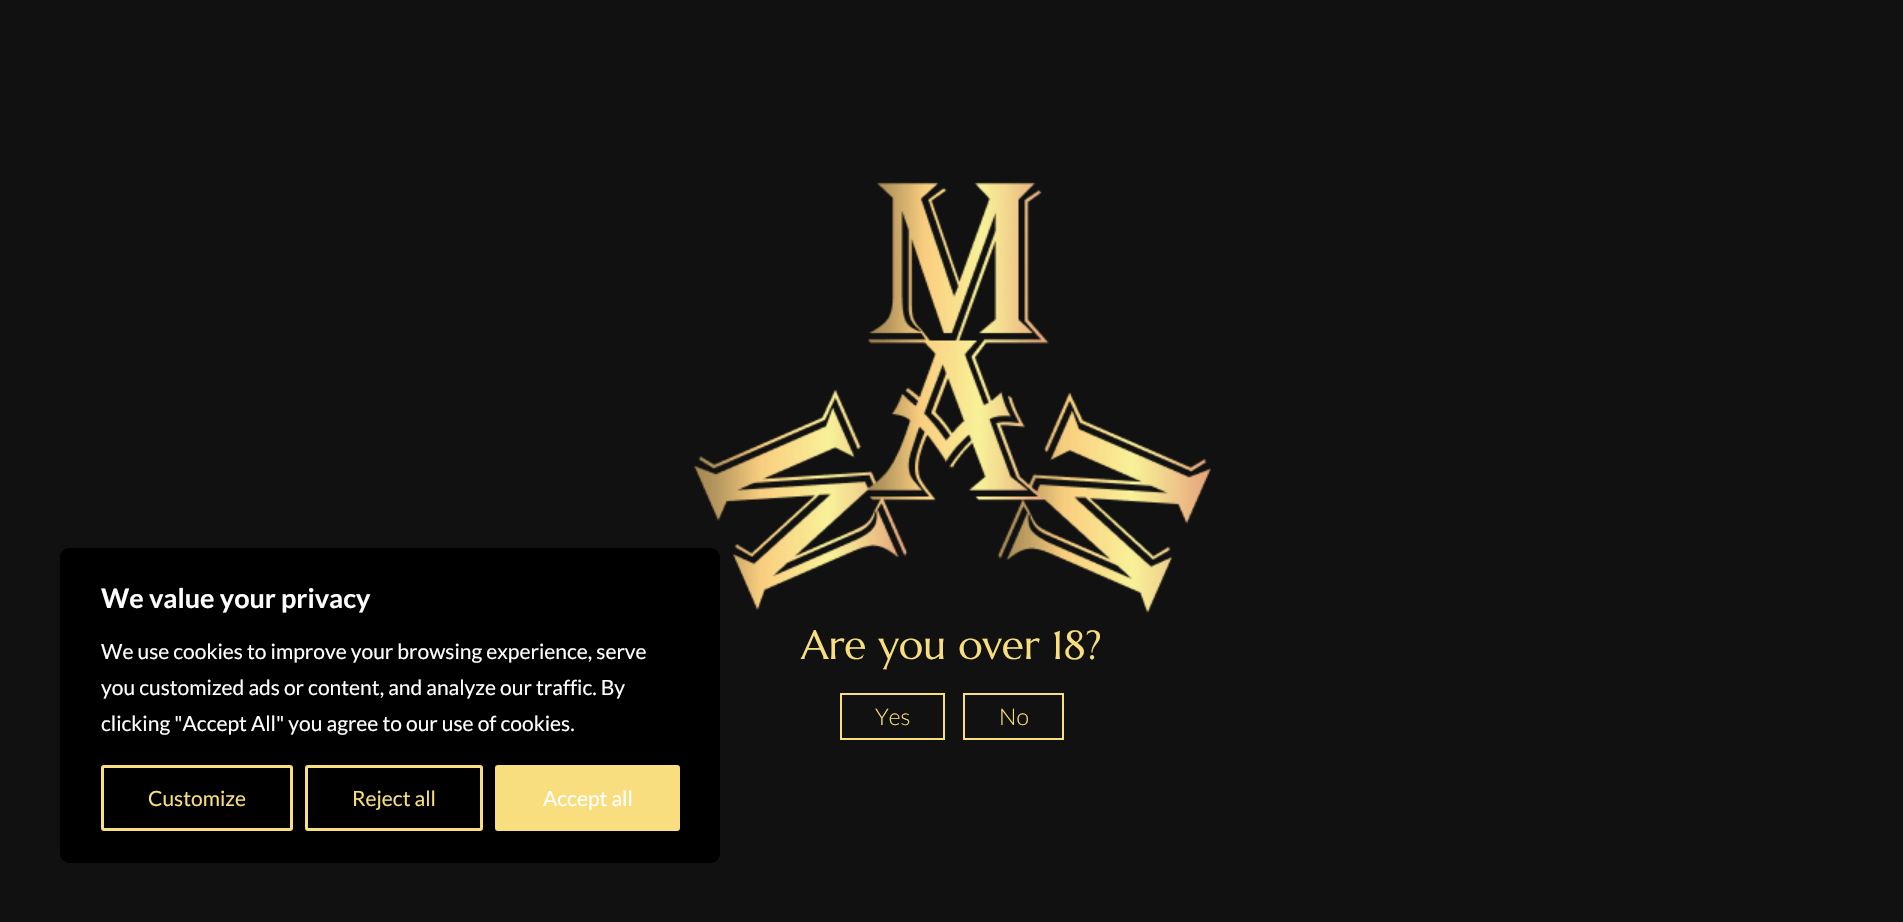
void draw(SkCanvas* canvas) {
    SkPaint paint;
    paint.setAntiAlias(true);
    canvas->clear(0xFF111111);
    canvas->drawImageRect(SkImages::DeferredFromEncodedData(SkData::MakeFromFileName("img1.png")), SkRect::MakeXYWH(694, 182, 517, 431), SkSamplingOptions());
    paint.setColor(0xFF000000);
    canvas->drawRoundRect(SkRect::MakeXYWH(61, 549, 658, 313), 8, 8, paint);
    paint.setStyle(SkPaint::kStroke_Style);
    paint.setStrokeWidth(2);
    canvas->drawRoundRect(SkRect::MakeXYWH(61, 549, 658, 313), 8, 8, paint);
    SkFont font1(fontMgr->matchFamilyStyle("Lato", SkFontStyle::Bold()), 27);
    font1.setSubpixel(true);
    paint.setStyle(SkPaint::kFill_Style);
    paint.setColor(0xFFFFFFFF);
    canvas->drawString("We value your privacy", 101, 608, font1, paint);
    SkFont font2(fontMgr->matchFamilyStyle("Lato", SkFontStyle::Normal()), 21);
    font2.setSubpixel(true);
    canvas->drawString("We use cookies to improve your browsing experience, serve", 101, 659, font2, paint);
    canvas->drawString("you customized ads or content, and analyze our traffic. By", 101, 695, font2, paint);
    canvas->drawString("clicking \"Accept All\" you agree to our use of cookies.", 101, 731, font2, paint);
    paint.setStyle(SkPaint::kStroke_Style);
    paint.setStrokeWidth(3);
    paint.setColor(0xFFF8DE7E);
    canvas->drawRoundRect(SkRect::MakeXYWH(102.5f, 766.5f, 189, 63), 1.5f, 1.5f, paint);
    paint.setStyle(SkPaint::kFill_Style);
    canvas->drawString("Customize", 148, 806, font2, paint);
    paint.setStyle(SkPaint::kStroke_Style);
    canvas->drawRoundRect(SkRect::MakeXYWH(306.5f, 766.5f, 175, 63), 1.5f, 1.5f, paint);
    paint.setStyle(SkPaint::kFill_Style);
    canvas->drawString("Reject all", 352, 806, font2, paint);
    canvas->drawRoundRect(SkRect::MakeXYWH(496.5f, 766.5f, 182, 63), 1.5f, 1.5f, paint);
    paint.setStyle(SkPaint::kStroke_Style);
    canvas->drawRoundRect(SkRect::MakeXYWH(496.5f, 766.5f, 182, 63), 1.5f, 1.5f, paint);
    paint.setStyle(SkPaint::kFill_Style);
    paint.setColor(0xFFFFFFFF);
    canvas->drawString("Accept all", 543, 806, font2, paint);
    SkFont font3(fontMgr->matchFamilyStyle("Marcellus", SkFontStyle::Normal()), 40.5f);
    font3.setSubpixel(true);
    paint.setColor(0xFFF8DE7E);
    canvas->drawString("Are you over 18?", 801, 659, font3, paint);
    paint.setStyle(SkPaint::kStroke_Style);
    paint.setStrokeWidth(2);
    canvas->drawRect(SkRect::MakeXYWH(841, 694, 103, 45), paint);
    SkFont font4(fontMgr->matchFamilyStyle("Lato", SkFontStyle(300, SkFontStyle::kNormal_Width, SkFontStyle::kUpright_Slant)), 23);
    font4.setSubpixel(true);
    paint.setStyle(SkPaint::kFill_Style);
    canvas->drawString("Yes", 875, 725, font4, paint);
    paint.setStyle(SkPaint::kStroke_Style);
    canvas->drawRect(SkRect::MakeXYWH(964, 694, 99, 45), paint);
    paint.setStyle(SkPaint::kFill_Style);
    canvas->drawString("No", 999, 725, font4, paint);
}
